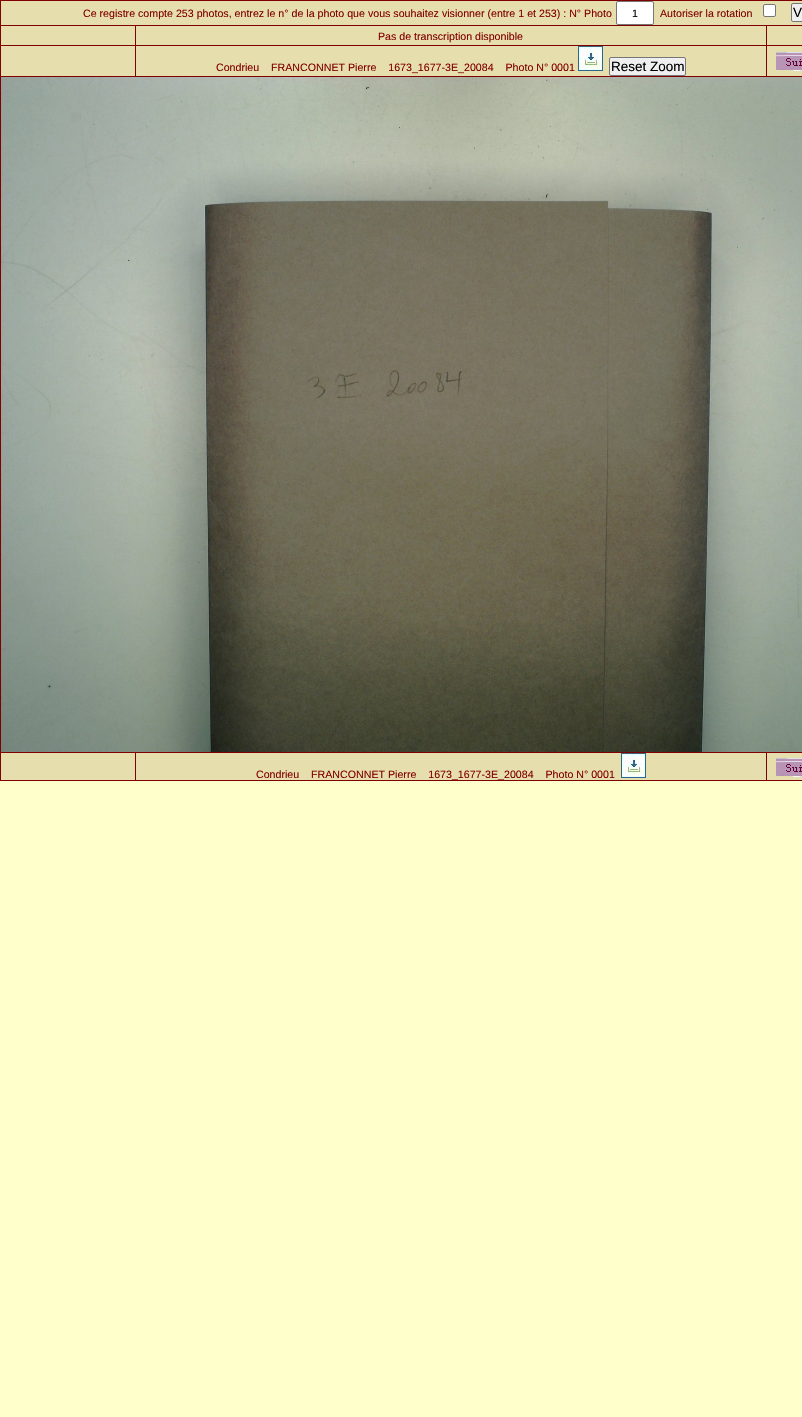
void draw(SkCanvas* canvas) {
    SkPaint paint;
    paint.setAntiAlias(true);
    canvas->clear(0xFFFFFFCC);
    paint.setColor(0xFF800000);
    canvas->drawRect(SkRect::MakeXYWH(0, 0, 802, 1), paint);
    canvas->drawRect(SkRect::MakeXYWH(0, 780, 802, 1), paint);
    canvas->drawRect(SkRect::MakeXYWH(0, 0, 1, 781), paint);
    paint.setColor(0xFFE7DEAD);
    canvas->drawRect(SkRect::MakeXYWH(1, 1, 801, 24), paint);
    SkFont font1(fontMgr->matchFamilyStyle("Liberation Sans", SkFontStyle::Normal()), 10.65f);
    font1.setSubpixel(true);
    paint.setColor(0xFF800000);
    canvas->drawString("Ce registre compte 253 photos, entrez le n° de la photo que vous souhaitez visionner (entre 1 et 253) : N° Photo", 83, 17, font1, paint);
    paint.setColor(0xFFFFFFFF);
    canvas->drawRoundRect(SkRect::MakeXYWH(616.5f, 1.5f, 37, 23), 1.5f, 1.5f, paint);
    paint.setStyle(SkPaint::kStroke_Style);
    paint.setStrokeWidth(1);
    paint.setColor(0xFF767676);
    canvas->drawRoundRect(SkRect::MakeXYWH(616.5f, 1.5f, 37, 23), 1.5f, 1.5f, paint);
    paint.setStyle(SkPaint::kFill_Style);
    paint.setColor(0xFF000000);
    canvas->drawString("1", 632, 17, font1, paint);
    paint.setColor(0xFF800000);
    canvas->drawString("Autoriser la rotation", 660, 17, font1, paint);
    paint.setColor(0xFFFFFFFF);
    canvas->drawRoundRect(SkRect::MakeXYWH(763.5f, 4.5f, 12, 12), 1.5f, 1.5f, paint);
    paint.setStyle(SkPaint::kStroke_Style);
    paint.setColor(0xFF767676);
    canvas->drawRoundRect(SkRect::MakeXYWH(763.5f, 4.5f, 12, 12), 1.5f, 1.5f, paint);
    paint.setStyle(SkPaint::kFill_Style);
    paint.setColor(0xFFEFEFEF);
    canvas->drawRoundRect(SkRect::MakeXYWH(791.5f, 3.5f, 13, 18), 1.5f, 1.5f, paint);
    paint.setStyle(SkPaint::kStroke_Style);
    paint.setColor(0xFF767676);
    canvas->drawRoundRect(SkRect::MakeXYWH(791.5f, 3.5f, 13, 18), 1.5f, 1.5f, paint);
    SkFont font2(fontMgr->matchFamilyStyle("Liberation Sans", SkFontStyle::Normal()), 13.5f);
    font2.setSubpixel(true);
    paint.setStyle(SkPaint::kFill_Style);
    paint.setColor(0xFF000000);
    canvas->drawString("V", 793, 17, font2, paint);
    paint.setColor(0xFFE7DEAD);
    canvas->drawRect(SkRect::MakeXYWH(1, 26, 134, 19), paint);
    paint.setColor(0xFF800000);
    canvas->drawRect(SkRect::MakeXYWH(766, 25, 36, 1), paint);
    canvas->drawRect(SkRect::MakeXYWH(766, 45, 36, 1), paint);
    canvas->drawRect(SkRect::MakeXYWH(0, 76, 802, 1), paint);
    canvas->drawRect(SkRect::MakeXYWH(766, 45, 1, 32), paint);
    canvas->drawRect(SkRect::MakeXYWH(135, 45, 632, 1), paint);
    canvas->drawRect(SkRect::MakeXYWH(766, 25, 1, 21), paint);
    canvas->drawRect(SkRect::MakeXYWH(135, 25, 632, 1), paint);
    canvas->drawRect(SkRect::MakeXYWH(135, 45, 1, 32), paint);
    canvas->drawRect(SkRect::MakeXYWH(0, 45, 136, 1), paint);
    canvas->drawRect(SkRect::MakeXYWH(135, 25, 1, 21), paint);
    canvas->drawRect(SkRect::MakeXYWH(0, 25, 136, 1), paint);
    paint.setColor(0xFFE7DEAD);
    canvas->drawRect(SkRect::MakeXYWH(136, 26, 630, 19), paint);
    paint.setColor(0xFF800000);
    canvas->drawString("Pas de transcription disponible", 378, 40, font1, paint);
    paint.setColor(0xFFE7DEAD);
    canvas->drawRect(SkRect::MakeXYWH(767, 26, 35, 19), paint);
    canvas->drawRect(SkRect::MakeXYWH(1, 46, 134, 30), paint);
    canvas->drawRect(SkRect::MakeXYWH(136, 46, 630, 30), paint);
    paint.setColor(0xFF800000);
    canvas->drawString("Condrieu    FRANCONNET Pierre    1673_1677-3E_20084    Photo N° 0001", 216, 71, font1, paint);
    canvas->drawImageRect(SkImages::DeferredFromEncodedData(SkData::MakeFromFileName("img1.png")), SkRect::MakeXYWH(578, 46, 25, 25), SkSamplingOptions());
    paint.setColor(0xFFEFEFEF);
    canvas->drawRoundRect(SkRect::MakeXYWH(609.5f, 57.5f, 76, 18), 1.5f, 1.5f, paint);
    paint.setStyle(SkPaint::kStroke_Style);
    paint.setColor(0xFF767676);
    canvas->drawRoundRect(SkRect::MakeXYWH(609.5f, 57.5f, 76, 18), 1.5f, 1.5f, paint);
    paint.setStyle(SkPaint::kFill_Style);
    paint.setColor(0xFF000000);
    canvas->drawString("Reset Zoom", 611, 71, font2, paint);
    paint.setColor(0xFFE7DEAD);
    canvas->drawRect(SkRect::MakeXYWH(767, 46, 35, 30), paint);
    canvas->drawImageRect(SkImages::DeferredFromEncodedData(SkData::MakeFromFileName("img2.png")), SkRect::MakeXYWH(776, 52, 26, 19), SkSamplingOptions());
    canvas->drawImageRect(SkImages::DeferredFromEncodedData(SkData::MakeFromFileName("img3.png")), SkRect::MakeXYWH(1, 77, 801, 675), SkSamplingOptions());
    canvas->drawRect(SkRect::MakeXYWH(1, 753, 134, 27), paint);
    paint.setColor(0xFF800000);
    canvas->drawRect(SkRect::MakeXYWH(766, 752, 36, 1), paint);
    canvas->drawRect(SkRect::MakeXYWH(766, 752, 1, 29), paint);
    canvas->drawRect(SkRect::MakeXYWH(135, 752, 632, 1), paint);
    canvas->drawRect(SkRect::MakeXYWH(135, 752, 1, 29), paint);
    canvas->drawRect(SkRect::MakeXYWH(0, 752, 136, 1), paint);
    paint.setColor(0xFFE7DEAD);
    canvas->drawRect(SkRect::MakeXYWH(136, 753, 630, 27), paint);
    paint.setColor(0xFF800000);
    canvas->drawString("Condrieu    FRANCONNET Pierre    1673_1677-3E_20084    Photo N° 0001", 256, 778, font1, paint);
    canvas->drawImageRect(SkImages::DeferredFromEncodedData(SkData::MakeFromFileName("img1.png")), SkRect::MakeXYWH(621, 753, 25, 25), SkSamplingOptions());
    paint.setColor(0xFFE7DEAD);
    canvas->drawRect(SkRect::MakeXYWH(767, 753, 35, 27), paint);
    canvas->drawImageRect(SkImages::DeferredFromEncodedData(SkData::MakeFromFileName("img2.png")), SkRect::MakeXYWH(776, 758, 26, 19), SkSamplingOptions());
}
